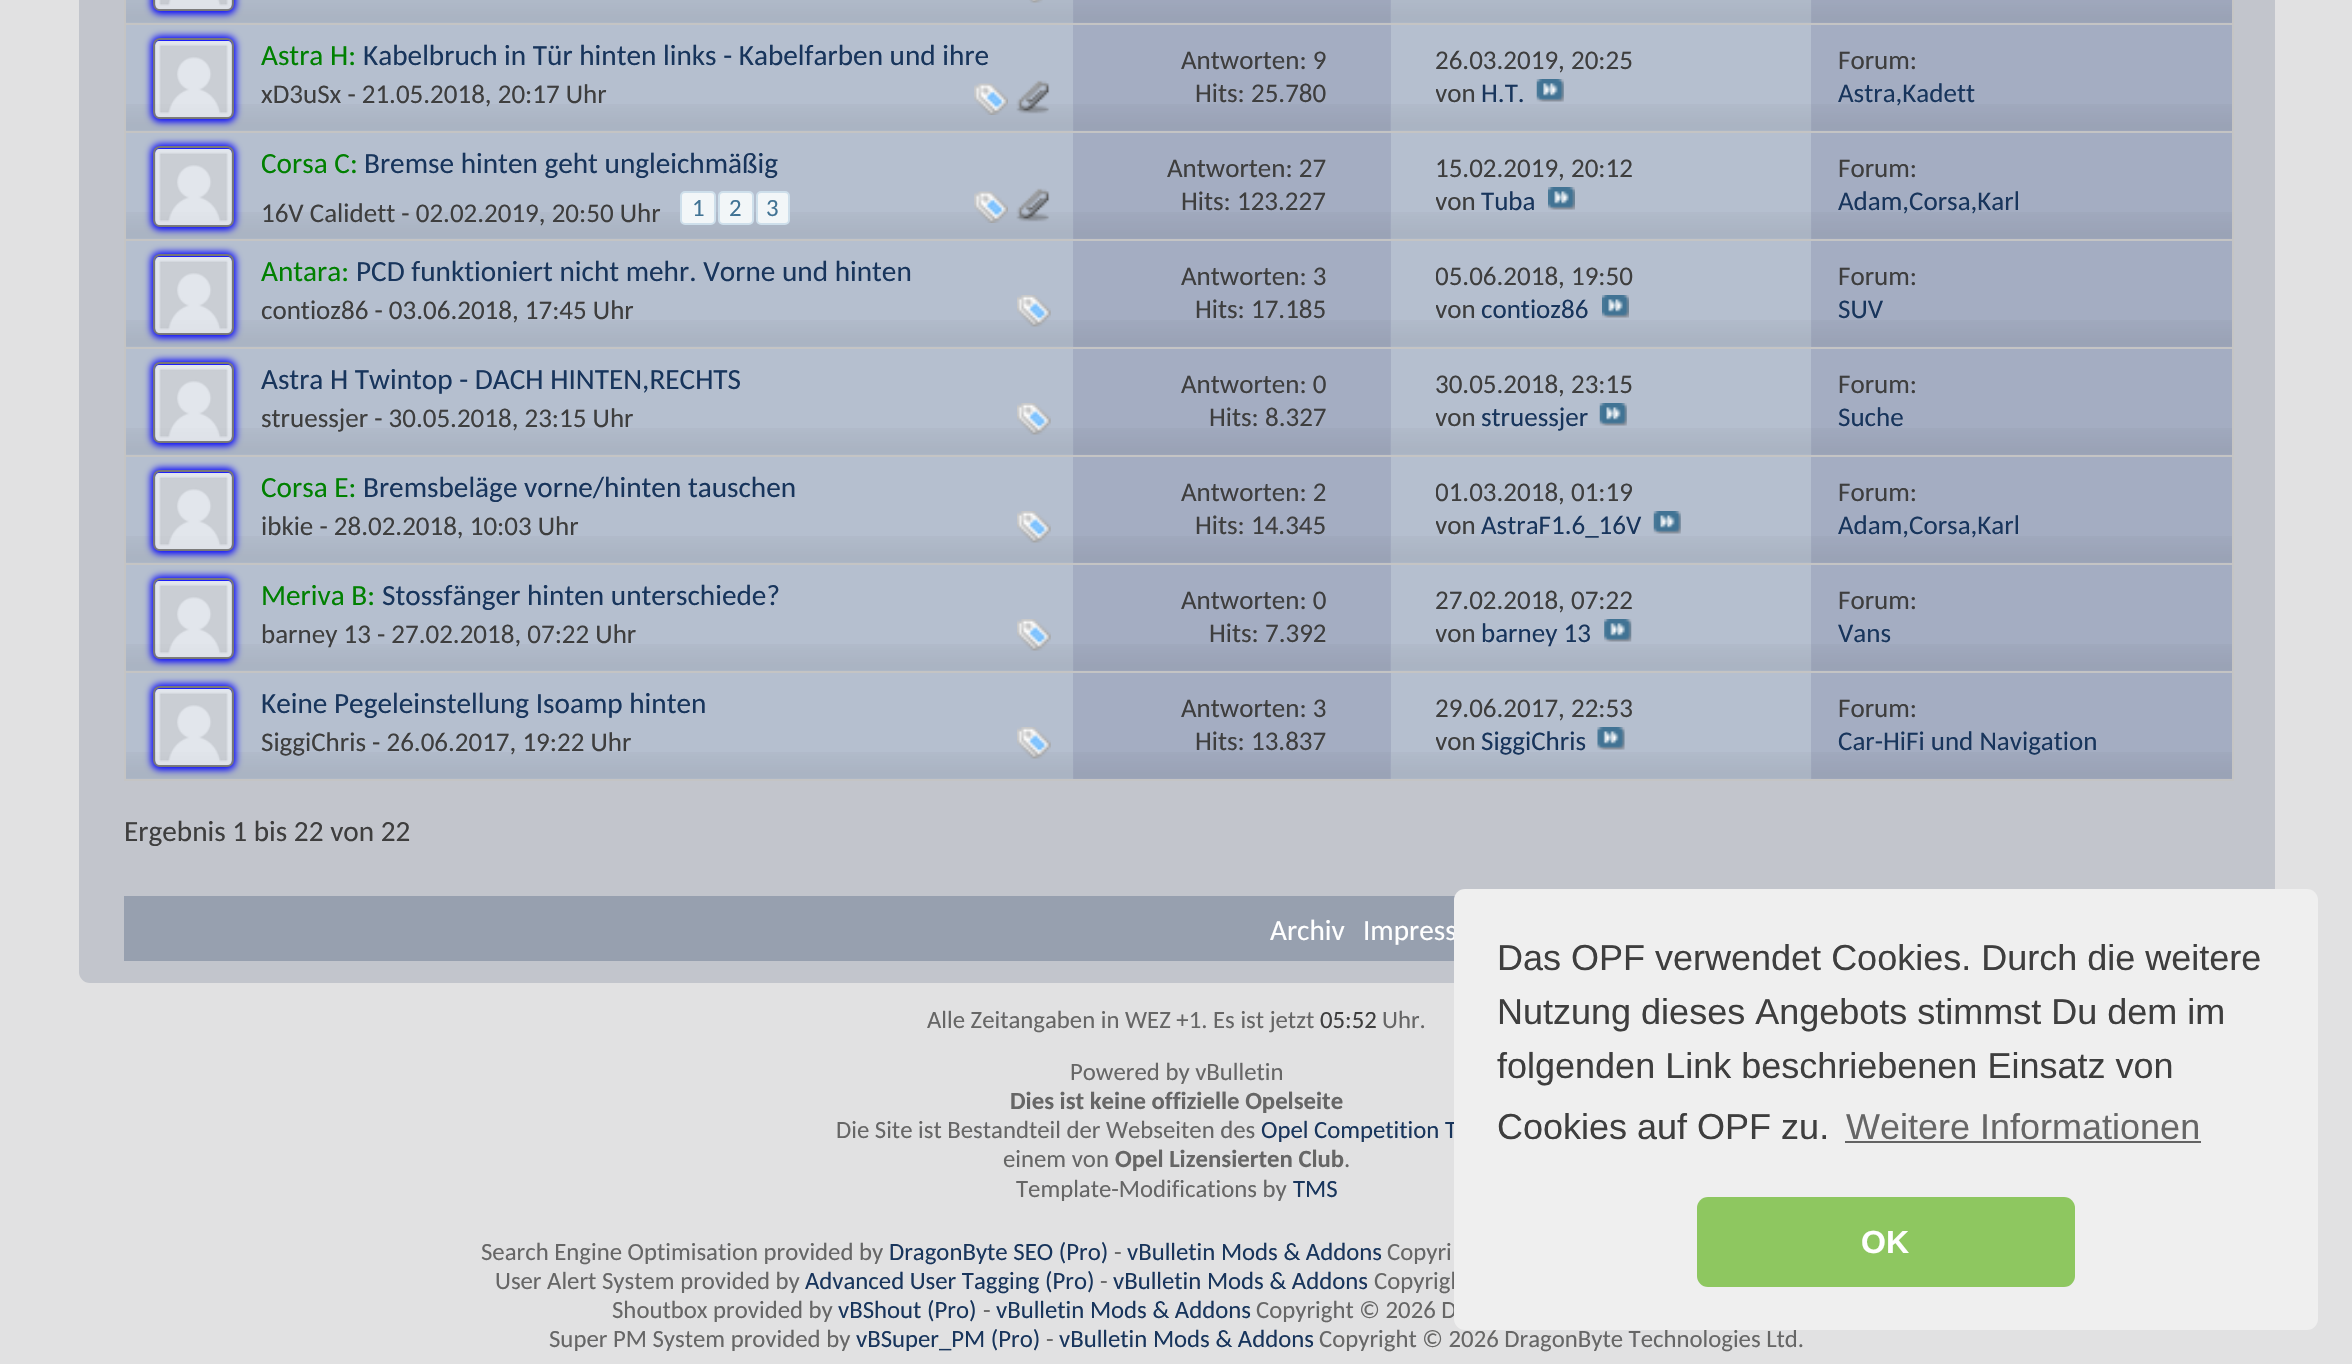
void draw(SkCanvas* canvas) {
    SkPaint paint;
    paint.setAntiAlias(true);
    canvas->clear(0xFFE1E1E2);
    paint.setColor(0xFFC2C5CC);
    canvas->drawRoundRect(SkRect::MakeXYWH(79, -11, 2196, 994), 11, 11, paint);
    paint.setColor(0xFFB5BFCF);
    canvas->drawRect(SkRect::MakeXYWH(126, 0, 1685, 23), paint);
    canvas->drawImageRect(SkImages::DeferredFromEncodedData(SkData::MakeFromFileName("img1.png")), SkRect::MakeXYWH(126, 0, 1685, 23), SkSamplingOptions());
    paint.setColor(0xFFC4C4C4);
    canvas->drawRect(SkRect::MakeXYWH(2232, 0, 2, 781), paint);
    canvas->drawRect(SkRect::MakeXYWH(124, 23, 2110, 2), paint);
    canvas->drawRect(SkRect::MakeXYWH(124, 0, 2, 25), paint);
    canvas->save();
    canvas->clipPath(SkPathBuilder(SkPathFillType::kEvenOdd).moveTo(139, 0).lineTo(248, 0).lineTo(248, 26).lineTo(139, 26).close().moveTo(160, -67).lineTo(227, -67).cubicTo(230, -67, 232, -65, 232, -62).lineTo(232, 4).cubicTo(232, 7, 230, 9, 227, 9).lineTo(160, 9).cubicTo(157, 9, 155, 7, 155, 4).lineTo(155, -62).cubicTo(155, -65, 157, -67, 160, -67).close().detach(), true);
    paint.setColor(0xFF0000FF);
    paint.setMaskFilter(SkMaskFilter::MakeBlur(kNormal_SkBlurStyle, 3.5f));
    canvas->drawRoundRect(SkRect::MakeXYWH(151, -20, 85, 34), 9, 9, paint);
    paint.setMaskFilter(nullptr);
    canvas->restore();
    paint.setStyle(SkPaint::kStroke_Style);
    paint.setStrokeWidth(2);
    paint.setColor(0xFF777777);
    canvas->drawRoundRect(SkRect::MakeXYWH(154, -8, 79, 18), 6, 6, paint);
    canvas->drawImageRect(SkImages::DeferredFromEncodedData(SkData::MakeFromFileName("img2.png")), SkRect::MakeXYWH(155, 0, 77, 10), SkSamplingOptions());
    canvas->drawImageRect(SkImages::DeferredFromEncodedData(SkData::MakeFromFileName("img3.png")), SkRect::MakeXYWH(1029, 0, 14, 3), SkSamplingOptions());
    paint.setStyle(SkPaint::kFill_Style);
    paint.setColor(0xFFA4ADC2);
    canvas->drawRect(SkRect::MakeXYWH(1073, 0, 318, 23), paint);
    canvas->drawImageRect(SkImages::DeferredFromEncodedData(SkData::MakeFromFileName("img4.png")), SkRect::MakeXYWH(1073, 0, 318, 23), SkSamplingOptions());
    canvas->drawRect(SkRect::MakeXYWH(1811, 0, 421, 23), paint);
    canvas->drawImageRect(SkImages::DeferredFromEncodedData(SkData::MakeFromFileName("img5.png")), SkRect::MakeXYWH(1811, 0, 421, 23), SkSamplingOptions());
    paint.setColor(0xFFB5BFCF);
    canvas->drawRect(SkRect::MakeXYWH(126, 25, 1685, 106), paint);
    canvas->drawImageRect(SkImages::DeferredFromEncodedData(SkData::MakeFromFileName("img6.png")), SkRect::MakeXYWH(126, 104, 1685, 27), SkSamplingOptions());
    paint.setColor(0xFFC4C4C4);
    canvas->drawRect(SkRect::MakeXYWH(124, 131, 2110, 2), paint);
    canvas->drawRect(SkRect::MakeXYWH(124, 25, 2, 108), paint);
    canvas->save();
    canvas->clipPath(SkPathBuilder(SkPathFillType::kEvenOdd).moveTo(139, 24).lineTo(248, 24).lineTo(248, 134).lineTo(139, 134).close().moveTo(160, 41).lineTo(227, 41).cubicTo(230, 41, 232, 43, 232, 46).lineTo(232, 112).cubicTo(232, 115, 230, 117, 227, 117).lineTo(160, 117).cubicTo(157, 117, 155, 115, 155, 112).lineTo(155, 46).cubicTo(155, 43, 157, 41, 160, 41).close().detach(), true);
    paint.setColor(0xFF0000FF);
    paint.setMaskFilter(SkMaskFilter::MakeBlur(kNormal_SkBlurStyle, 3.5f));
    canvas->drawRoundRect(SkRect::MakeXYWH(151, 36, 85, 86), 9, 9, paint);
    paint.setMaskFilter(nullptr);
    canvas->restore();
    paint.setStyle(SkPaint::kStroke_Style);
    paint.setColor(0xFF777777);
    canvas->drawRoundRect(SkRect::MakeXYWH(154, 39, 79, 79), 6, 6, paint);
    canvas->drawImageRect(SkImages::DeferredFromEncodedData(SkData::MakeFromFileName("img7.png")), SkRect::MakeXYWH(155, 40, 77, 78), SkSamplingOptions());
    SkFont font1(fontMgr->matchFamilyStyle("Carlito", SkFontStyle::Normal()), 29.25f);
    font1.setSubpixel(true);
    paint.setStyle(SkPaint::kFill_Style);
    paint.setColor(0xFF008000);
    canvas->drawString("Astra H:", 261, 65, font1, paint);
    paint.setColor(0xFF18355C);
    canvas->drawString("Kabelbruch in Tür hinten links - Kabelfarben und ihre", 363, 65, font1, paint);
    SkFont font2(fontMgr->matchFamilyStyle("Carlito", SkFontStyle::Normal()), 27);
    font2.setSubpixel(true);
    paint.setColor(0xFF3E3E3E);
    canvas->drawString("xD3uSx - 21.05.2018, 20:17 Uhr", 261, 103, font2, paint);
    canvas->drawImageRect(SkImages::DeferredFromEncodedData(SkData::MakeFromFileName("img8.png")), SkRect::MakeXYWH(974, 83, 34, 32), SkSamplingOptions());
    canvas->drawImageRect(SkImages::DeferredFromEncodedData(SkData::MakeFromFileName("img9.png")), SkRect::MakeXYWH(1016, 80, 34, 34), SkSamplingOptions());
    paint.setColor(0xFFA4ADC2);
    canvas->drawRect(SkRect::MakeXYWH(1073, 25, 318, 106), paint);
    canvas->drawImageRect(SkImages::DeferredFromEncodedData(SkData::MakeFromFileName("img10.png")), SkRect::MakeXYWH(1073, 104, 318, 27), SkSamplingOptions());
    paint.setColor(0xFF3E3E3E);
    canvas->drawString("Antworten: 9", 1181, 69, font2, paint);
    canvas->drawString("Hits: 25.780", 1195, 102, font2, paint);
    canvas->drawString("26.03.2019, 20:25", 1435, 69, font2, paint);
    canvas->save();
    canvas->clipRect(SkRect::MakeXYWH(1436, 77, 330, 33));
    canvas->drawString("von", 1435, 102, font2, paint);
    canvas->restore();
    paint.setColor(0xFF18355C);
    canvas->drawString("H.T.", 1481, 102, font2, paint);
    canvas->drawImageRect(SkImages::DeferredFromEncodedData(SkData::MakeFromFileName("img11.png")), SkRect::MakeXYWH(1536, 79, 28, 23), SkSamplingOptions());
    paint.setColor(0xFFA4ADC2);
    canvas->drawRect(SkRect::MakeXYWH(1811, 25, 421, 106), paint);
    canvas->drawImageRect(SkImages::DeferredFromEncodedData(SkData::MakeFromFileName("img12.png")), SkRect::MakeXYWH(1811, 104, 421, 27), SkSamplingOptions());
    paint.setColor(0xFF3E3E3E);
    canvas->drawString("Forum:", 1838, 69, font2, paint);
    paint.setColor(0xFF18355C);
    canvas->drawString("Astra,Kadett", 1838, 102, font2, paint);
    paint.setColor(0xFFB5BFCF);
    canvas->drawRect(SkRect::MakeXYWH(126, 133, 1685, 106), paint);
    canvas->drawImageRect(SkImages::DeferredFromEncodedData(SkData::MakeFromFileName("img13.png")), SkRect::MakeXYWH(126, 212, 1685, 27), SkSamplingOptions());
    paint.setColor(0xFFC4C4C4);
    canvas->drawRect(SkRect::MakeXYWH(124, 239, 2110, 2), paint);
    canvas->drawRect(SkRect::MakeXYWH(124, 133, 2, 108), paint);
    canvas->save();
    canvas->clipPath(SkPathBuilder(SkPathFillType::kEvenOdd).moveTo(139, 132).lineTo(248, 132).lineTo(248, 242).lineTo(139, 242).close().moveTo(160, 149).lineTo(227, 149).cubicTo(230, 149, 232, 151, 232, 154).lineTo(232, 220).cubicTo(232, 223, 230, 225, 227, 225).lineTo(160, 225).cubicTo(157, 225, 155, 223, 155, 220).lineTo(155, 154).cubicTo(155, 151, 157, 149, 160, 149).close().detach(), true);
    paint.setColor(0xFF0000FF);
    paint.setMaskFilter(SkMaskFilter::MakeBlur(kNormal_SkBlurStyle, 3.5f));
    canvas->drawRoundRect(SkRect::MakeXYWH(151, 144, 85, 86), 9, 9, paint);
    paint.setMaskFilter(nullptr);
    canvas->restore();
    paint.setStyle(SkPaint::kStroke_Style);
    paint.setColor(0xFF777777);
    canvas->drawRoundRect(SkRect::MakeXYWH(154, 147, 79, 79), 6, 6, paint);
    canvas->drawImageRect(SkImages::DeferredFromEncodedData(SkData::MakeFromFileName("img14.png")), SkRect::MakeXYWH(155, 148, 77, 78), SkSamplingOptions());
    paint.setStyle(SkPaint::kFill_Style);
    paint.setColor(0xFF008000);
    canvas->drawString("Corsa C:", 261, 173, font1, paint);
    paint.setColor(0xFF18355C);
    canvas->drawString("Bremse hinten geht ungleichmäßig", 364, 173, font1, paint);
    paint.setColor(0xFF3E3E3E);
    canvas->drawString("16V Calidett - 02.02.2019, 20:50 Uhr", 261, 222, font2, paint);
    paint.setColor(0xFFF2F6F8);
    canvas->drawRoundRect(SkRect::MakeXYWH(681, 192, 34, 32), 4, 4, paint);
    paint.setStyle(SkPaint::kStroke_Style);
    paint.setColor(0xFFCEDFEB);
    canvas->drawRoundRect(SkRect::MakeXYWH(681, 192, 34, 32), 4, 4, paint);
    SkFont font3(fontMgr->matchFamilyStyle("Carlito", SkFontStyle::Normal()), 24.75f);
    font3.setSubpixel(true);
    paint.setStyle(SkPaint::kFill_Style);
    paint.setColor(0xFF417394);
    canvas->drawString("1", 692, 216, font3, paint);
    paint.setColor(0xFFF2F6F8);
    canvas->drawRoundRect(SkRect::MakeXYWH(719, 192, 34, 32), 4, 4, paint);
    paint.setStyle(SkPaint::kStroke_Style);
    paint.setColor(0xFFCEDFEB);
    canvas->drawRoundRect(SkRect::MakeXYWH(719, 192, 34, 32), 4, 4, paint);
    paint.setStyle(SkPaint::kFill_Style);
    paint.setColor(0xFF417394);
    canvas->drawString("2", 729, 216, font3, paint);
    paint.setColor(0xFFF2F6F8);
    canvas->drawRoundRect(SkRect::MakeXYWH(757, 192, 32, 32), 4, 4, paint);
    paint.setStyle(SkPaint::kStroke_Style);
    paint.setColor(0xFFCEDFEB);
    canvas->drawRoundRect(SkRect::MakeXYWH(757, 192, 32, 32), 4, 4, paint);
    paint.setStyle(SkPaint::kFill_Style);
    paint.setColor(0xFF417394);
    canvas->drawString("3", 766, 216, font3, paint);
    canvas->drawImageRect(SkImages::DeferredFromEncodedData(SkData::MakeFromFileName("img15.png")), SkRect::MakeXYWH(974, 191, 34, 32), SkSamplingOptions());
    canvas->drawImageRect(SkImages::DeferredFromEncodedData(SkData::MakeFromFileName("img16.png")), SkRect::MakeXYWH(1016, 188, 34, 34), SkSamplingOptions());
    paint.setColor(0xFFA4ADC2);
    canvas->drawRect(SkRect::MakeXYWH(1073, 133, 318, 106), paint);
    canvas->drawImageRect(SkImages::DeferredFromEncodedData(SkData::MakeFromFileName("img17.png")), SkRect::MakeXYWH(1073, 212, 318, 27), SkSamplingOptions());
    paint.setColor(0xFF3E3E3E);
    canvas->drawString("Antworten: 27", 1167, 177, font2, paint);
    canvas->drawString("Hits: 123.227", 1181, 210, font2, paint);
    canvas->drawString("15.02.2019, 20:12", 1435, 177, font2, paint);
    canvas->save();
    canvas->clipRect(SkRect::MakeXYWH(1436, 185, 330, 33));
    canvas->drawString("von", 1435, 210, font2, paint);
    canvas->restore();
    paint.setColor(0xFF18355C);
    canvas->drawString("Tuba", 1481, 210, font2, paint);
    canvas->drawImageRect(SkImages::DeferredFromEncodedData(SkData::MakeFromFileName("img18.png")), SkRect::MakeXYWH(1548, 187, 27, 23), SkSamplingOptions());
    paint.setColor(0xFFA4ADC2);
    canvas->drawRect(SkRect::MakeXYWH(1811, 133, 421, 106), paint);
    canvas->drawImageRect(SkImages::DeferredFromEncodedData(SkData::MakeFromFileName("img19.png")), SkRect::MakeXYWH(1811, 212, 421, 27), SkSamplingOptions());
    paint.setColor(0xFF3E3E3E);
    canvas->drawString("Forum:", 1838, 177, font2, paint);
    paint.setColor(0xFF18355C);
    canvas->drawString("Adam,Corsa,Karl", 1838, 210, font2, paint);
    paint.setColor(0xFFB5BFCF);
    canvas->drawRect(SkRect::MakeXYWH(126, 241, 1685, 106), paint);
    canvas->drawImageRect(SkImages::DeferredFromEncodedData(SkData::MakeFromFileName("img6.png")), SkRect::MakeXYWH(126, 320, 1685, 27), SkSamplingOptions());
    paint.setColor(0xFFC4C4C4);
    canvas->drawRect(SkRect::MakeXYWH(124, 347, 2110, 2), paint);
    canvas->drawRect(SkRect::MakeXYWH(124, 241, 2, 108), paint);
    canvas->save();
    canvas->clipPath(SkPathBuilder(SkPathFillType::kEvenOdd).moveTo(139, 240).lineTo(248, 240).lineTo(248, 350).lineTo(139, 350).close().moveTo(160, 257).lineTo(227, 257).cubicTo(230, 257, 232, 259, 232, 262).lineTo(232, 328).cubicTo(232, 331, 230, 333, 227, 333).lineTo(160, 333).cubicTo(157, 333, 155, 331, 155, 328).lineTo(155, 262).cubicTo(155, 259, 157, 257, 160, 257).close().detach(), true);
    paint.setColor(0xFF0000FF);
    paint.setMaskFilter(SkMaskFilter::MakeBlur(kNormal_SkBlurStyle, 3.5f));
    canvas->drawRoundRect(SkRect::MakeXYWH(151, 252, 85, 86), 9, 9, paint);
    paint.setMaskFilter(nullptr);
    canvas->restore();
    paint.setStyle(SkPaint::kStroke_Style);
    paint.setColor(0xFF777777);
    canvas->drawRoundRect(SkRect::MakeXYWH(154, 255, 79, 79), 6, 6, paint);
    canvas->drawImageRect(SkImages::DeferredFromEncodedData(SkData::MakeFromFileName("img14.png")), SkRect::MakeXYWH(155, 256, 77, 78), SkSamplingOptions());
    paint.setStyle(SkPaint::kFill_Style);
    paint.setColor(0xFF008000);
    canvas->drawString("Antara:", 261, 281, font1, paint);
    paint.setColor(0xFF18355C);
    canvas->drawString("PCD funktioniert nicht mehr. Vorne und hinten", 356, 281, font1, paint);
    paint.setColor(0xFF3E3E3E);
    canvas->drawString("contioz86 - 03.06.2018, 17:45 Uhr", 261, 319, font2, paint);
    canvas->drawImageRect(SkImages::DeferredFromEncodedData(SkData::MakeFromFileName("img20.png")), SkRect::MakeXYWH(1017, 295, 34, 32), SkSamplingOptions());
    paint.setColor(0xFFA4ADC2);
    canvas->drawRect(SkRect::MakeXYWH(1073, 241, 318, 106), paint);
    canvas->drawImageRect(SkImages::DeferredFromEncodedData(SkData::MakeFromFileName("img10.png")), SkRect::MakeXYWH(1073, 320, 318, 27), SkSamplingOptions());
    paint.setColor(0xFF3E3E3E);
    canvas->drawString("Antworten: 3", 1181, 285, font2, paint);
    canvas->drawString("Hits: 17.185", 1195, 318, font2, paint);
    canvas->save();
    canvas->clipRect(SkRect::MakeXYWH(1436, 261, 330, 32));
    canvas->drawString("05.06.2018,", 1435, 285, font2, paint);
    canvas->restore();
    canvas->drawString("19:50", 1571, 285, font2, paint);
    canvas->save();
    canvas->clipRect(SkRect::MakeXYWH(1436, 293, 330, 33));
    canvas->drawString("von", 1435, 318, font2, paint);
    canvas->restore();
    paint.setColor(0xFF18355C);
    canvas->drawString("contioz86", 1481, 318, font2, paint);
    canvas->drawImageRect(SkImages::DeferredFromEncodedData(SkData::MakeFromFileName("img21.png")), SkRect::MakeXYWH(1602, 295, 27, 23), SkSamplingOptions());
    paint.setColor(0xFFA4ADC2);
    canvas->drawRect(SkRect::MakeXYWH(1811, 241, 421, 106), paint);
    canvas->drawImageRect(SkImages::DeferredFromEncodedData(SkData::MakeFromFileName("img12.png")), SkRect::MakeXYWH(1811, 320, 421, 27), SkSamplingOptions());
    paint.setColor(0xFF3E3E3E);
    canvas->drawString("Forum:", 1838, 285, font2, paint);
    paint.setColor(0xFF18355C);
    canvas->drawString("SUV", 1838, 318, font2, paint);
    paint.setColor(0xFFB5BFCF);
    canvas->drawRect(SkRect::MakeXYWH(126, 349, 1685, 106), paint);
    canvas->drawImageRect(SkImages::DeferredFromEncodedData(SkData::MakeFromFileName("img22.png")), SkRect::MakeXYWH(126, 428, 1685, 27), SkSamplingOptions());
    paint.setColor(0xFFC4C4C4);
    canvas->drawRect(SkRect::MakeXYWH(124, 455, 2110, 2), paint);
    canvas->drawRect(SkRect::MakeXYWH(124, 349, 2, 108), paint);
    canvas->save();
    canvas->clipPath(SkPathBuilder(SkPathFillType::kEvenOdd).moveTo(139, 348).lineTo(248, 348).lineTo(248, 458).lineTo(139, 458).close().moveTo(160, 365).lineTo(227, 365).cubicTo(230, 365, 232, 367, 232, 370).lineTo(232, 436).cubicTo(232, 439, 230, 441, 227, 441).lineTo(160, 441).cubicTo(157, 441, 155, 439, 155, 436).lineTo(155, 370).cubicTo(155, 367, 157, 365, 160, 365).close().detach(), true);
    paint.setColor(0xFF0000FF);
    paint.setMaskFilter(SkMaskFilter::MakeBlur(kNormal_SkBlurStyle, 3.5f));
    canvas->drawRoundRect(SkRect::MakeXYWH(151, 360, 85, 86), 9, 9, paint);
    paint.setMaskFilter(nullptr);
    canvas->restore();
    paint.setStyle(SkPaint::kStroke_Style);
    paint.setColor(0xFF777777);
    canvas->drawRoundRect(SkRect::MakeXYWH(154, 363, 79, 79), 6, 6, paint);
    canvas->drawImageRect(SkImages::DeferredFromEncodedData(SkData::MakeFromFileName("img7.png")), SkRect::MakeXYWH(155, 364, 77, 78), SkSamplingOptions());
    paint.setStyle(SkPaint::kFill_Style);
    paint.setColor(0xFF18355C);
    canvas->drawString("Astra H Twintop - DACH HINTEN,RECHTS", 261, 389, font1, paint);
    paint.setColor(0xFF3E3E3E);
    canvas->drawString("struessjer - 30.05.2018, 23:15 Uhr", 261, 427, font2, paint);
    canvas->drawImageRect(SkImages::DeferredFromEncodedData(SkData::MakeFromFileName("img23.png")), SkRect::MakeXYWH(1017, 403, 34, 32), SkSamplingOptions());
    paint.setColor(0xFFA4ADC2);
    canvas->drawRect(SkRect::MakeXYWH(1073, 349, 318, 106), paint);
    canvas->drawImageRect(SkImages::DeferredFromEncodedData(SkData::MakeFromFileName("img24.png")), SkRect::MakeXYWH(1073, 428, 318, 27), SkSamplingOptions());
    paint.setColor(0xFF3E3E3E);
    canvas->drawString("Antworten: 0", 1181, 393, font2, paint);
    canvas->drawString("Hits: 8.327", 1209, 426, font2, paint);
    canvas->drawString("30.05.2018, 23:15", 1435, 393, font2, paint);
    canvas->save();
    canvas->clipRect(SkRect::MakeXYWH(1436, 401, 330, 33));
    canvas->drawString("von", 1435, 426, font2, paint);
    canvas->restore();
    paint.setColor(0xFF18355C);
    canvas->drawString("struessjer", 1481, 426, font2, paint);
    canvas->drawImageRect(SkImages::DeferredFromEncodedData(SkData::MakeFromFileName("img25.png")), SkRect::MakeXYWH(1599, 403, 28, 23), SkSamplingOptions());
    paint.setColor(0xFFA4ADC2);
    canvas->drawRect(SkRect::MakeXYWH(1811, 349, 421, 106), paint);
    canvas->drawImageRect(SkImages::DeferredFromEncodedData(SkData::MakeFromFileName("img26.png")), SkRect::MakeXYWH(1811, 428, 421, 27), SkSamplingOptions());
    paint.setColor(0xFF3E3E3E);
    canvas->drawString("Forum:", 1838, 393, font2, paint);
    paint.setColor(0xFF18355C);
    canvas->drawString("Suche", 1838, 426, font2, paint);
    paint.setColor(0xFFB5BFCF);
    canvas->drawRect(SkRect::MakeXYWH(126, 457, 1685, 106), paint);
    canvas->drawImageRect(SkImages::DeferredFromEncodedData(SkData::MakeFromFileName("img6.png")), SkRect::MakeXYWH(126, 536, 1685, 27), SkSamplingOptions());
    paint.setColor(0xFFC4C4C4);
    canvas->drawRect(SkRect::MakeXYWH(124, 563, 2110, 2), paint);
    canvas->drawRect(SkRect::MakeXYWH(124, 457, 2, 108), paint);
    canvas->save();
    canvas->clipPath(SkPathBuilder(SkPathFillType::kEvenOdd).moveTo(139, 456).lineTo(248, 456).lineTo(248, 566).lineTo(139, 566).close().moveTo(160, 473).lineTo(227, 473).cubicTo(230, 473, 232, 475, 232, 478).lineTo(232, 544).cubicTo(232, 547, 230, 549, 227, 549).lineTo(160, 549).cubicTo(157, 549, 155, 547, 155, 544).lineTo(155, 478).cubicTo(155, 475, 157, 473, 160, 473).close().detach(), true);
    paint.setColor(0xFF0000FF);
    paint.setMaskFilter(SkMaskFilter::MakeBlur(kNormal_SkBlurStyle, 3.5f));
    canvas->drawRoundRect(SkRect::MakeXYWH(151, 468, 85, 86), 9, 9, paint);
    paint.setMaskFilter(nullptr);
    canvas->restore();
    paint.setStyle(SkPaint::kStroke_Style);
    paint.setColor(0xFF777777);
    canvas->drawRoundRect(SkRect::MakeXYWH(154, 471, 79, 79), 6, 6, paint);
    canvas->drawImageRect(SkImages::DeferredFromEncodedData(SkData::MakeFromFileName("img27.png")), SkRect::MakeXYWH(155, 472, 77, 78), SkSamplingOptions());
    paint.setStyle(SkPaint::kFill_Style);
    paint.setColor(0xFF008000);
    canvas->drawString("Corsa E:", 261, 497, font1, paint);
    paint.setColor(0xFF18355C);
    canvas->drawString("Bremsbeläge vorne/hinten tauschen", 363, 497, font1, paint);
    paint.setColor(0xFF3E3E3E);
    canvas->drawString("ibkie - 28.02.2018, 10:03 Uhr", 261, 535, font2, paint);
    canvas->drawImageRect(SkImages::DeferredFromEncodedData(SkData::MakeFromFileName("img28.png")), SkRect::MakeXYWH(1017, 511, 34, 32), SkSamplingOptions());
    paint.setColor(0xFFA4ADC2);
    canvas->drawRect(SkRect::MakeXYWH(1073, 457, 318, 106), paint);
    canvas->drawImageRect(SkImages::DeferredFromEncodedData(SkData::MakeFromFileName("img10.png")), SkRect::MakeXYWH(1073, 536, 318, 27), SkSamplingOptions());
    paint.setColor(0xFF3E3E3E);
    canvas->drawString("Antworten: 2", 1181, 501, font2, paint);
    canvas->drawString("Hits: 14.345", 1195, 534, font2, paint);
    canvas->save();
    canvas->clipRect(SkRect::MakeXYWH(1436, 477, 330, 32));
    canvas->drawString("01.03.2018,", 1435, 501, font2, paint);
    canvas->restore();
    canvas->drawString("01:19", 1571, 501, font2, paint);
    canvas->save();
    canvas->clipRect(SkRect::MakeXYWH(1436, 509, 330, 33));
    canvas->drawString("von", 1435, 534, font2, paint);
    canvas->restore();
    paint.setColor(0xFF18355C);
    canvas->drawString("AstraF1.6_16V", 1481, 534, font2, paint);
    canvas->drawImageRect(SkImages::DeferredFromEncodedData(SkData::MakeFromFileName("img29.png")), SkRect::MakeXYWH(1653, 511, 28, 23), SkSamplingOptions());
    paint.setColor(0xFFA4ADC2);
    canvas->drawRect(SkRect::MakeXYWH(1811, 457, 421, 106), paint);
    canvas->drawImageRect(SkImages::DeferredFromEncodedData(SkData::MakeFromFileName("img12.png")), SkRect::MakeXYWH(1811, 536, 421, 27), SkSamplingOptions());
    paint.setColor(0xFF3E3E3E);
    canvas->drawString("Forum:", 1838, 501, font2, paint);
    paint.setColor(0xFF18355C);
    canvas->drawString("Adam,Corsa,Karl", 1838, 534, font2, paint);
    paint.setColor(0xFFB5BFCF);
    canvas->drawRect(SkRect::MakeXYWH(126, 565, 1685, 106), paint);
    canvas->drawImageRect(SkImages::DeferredFromEncodedData(SkData::MakeFromFileName("img22.png")), SkRect::MakeXYWH(126, 644, 1685, 27), SkSamplingOptions());
    paint.setColor(0xFFC4C4C4);
    canvas->drawRect(SkRect::MakeXYWH(124, 671, 2110, 2), paint);
    canvas->drawRect(SkRect::MakeXYWH(124, 565, 2, 108), paint);
    canvas->save();
    canvas->clipPath(SkPathBuilder(SkPathFillType::kEvenOdd).moveTo(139, 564).lineTo(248, 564).lineTo(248, 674).lineTo(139, 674).close().moveTo(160, 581).lineTo(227, 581).cubicTo(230, 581, 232, 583, 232, 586).lineTo(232, 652).cubicTo(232, 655, 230, 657, 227, 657).lineTo(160, 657).cubicTo(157, 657, 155, 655, 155, 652).lineTo(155, 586).cubicTo(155, 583, 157, 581, 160, 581).close().detach(), true);
    paint.setColor(0xFF0000FF);
    paint.setMaskFilter(SkMaskFilter::MakeBlur(kNormal_SkBlurStyle, 3.5f));
    canvas->drawRoundRect(SkRect::MakeXYWH(151, 576, 85, 86), 9, 9, paint);
    paint.setMaskFilter(nullptr);
    canvas->restore();
    paint.setStyle(SkPaint::kStroke_Style);
    paint.setColor(0xFF777777);
    canvas->drawRoundRect(SkRect::MakeXYWH(154, 579, 79, 79), 6, 6, paint);
    canvas->drawImageRect(SkImages::DeferredFromEncodedData(SkData::MakeFromFileName("img7.png")), SkRect::MakeXYWH(155, 580, 77, 78), SkSamplingOptions());
    paint.setStyle(SkPaint::kFill_Style);
    paint.setColor(0xFF008000);
    canvas->drawString("Meriva B:", 261, 605, font1, paint);
    paint.setColor(0xFF18355C);
    canvas->drawString("Stossfänger hinten unterschiede?", 382, 605, font1, paint);
    paint.setColor(0xFF3E3E3E);
    canvas->drawString("barney 13 - 27.02.2018, 07:22 Uhr", 261, 643, font2, paint);
    canvas->drawImageRect(SkImages::DeferredFromEncodedData(SkData::MakeFromFileName("img23.png")), SkRect::MakeXYWH(1017, 619, 34, 32), SkSamplingOptions());
    paint.setColor(0xFFA4ADC2);
    canvas->drawRect(SkRect::MakeXYWH(1073, 565, 318, 106), paint);
    canvas->drawImageRect(SkImages::DeferredFromEncodedData(SkData::MakeFromFileName("img24.png")), SkRect::MakeXYWH(1073, 644, 318, 27), SkSamplingOptions());
    paint.setColor(0xFF3E3E3E);
    canvas->drawString("Antworten: 0", 1181, 609, font2, paint);
    canvas->drawString("Hits: 7.392", 1209, 642, font2, paint);
    canvas->drawString("27.02.2018, 07:22", 1435, 609, font2, paint);
    canvas->save();
    canvas->clipRect(SkRect::MakeXYWH(1436, 617, 330, 33));
    canvas->drawString("von", 1435, 642, font2, paint);
    canvas->restore();
    paint.setColor(0xFF18355C);
    canvas->drawString("barney 13", 1481, 642, font2, paint);
    canvas->drawImageRect(SkImages::DeferredFromEncodedData(SkData::MakeFromFileName("img30.png")), SkRect::MakeXYWH(1604, 619, 28, 23), SkSamplingOptions());
    paint.setColor(0xFFA4ADC2);
    canvas->drawRect(SkRect::MakeXYWH(1811, 565, 421, 106), paint);
    canvas->drawImageRect(SkImages::DeferredFromEncodedData(SkData::MakeFromFileName("img26.png")), SkRect::MakeXYWH(1811, 644, 421, 27), SkSamplingOptions());
    paint.setColor(0xFF3E3E3E);
    canvas->drawString("Forum:", 1838, 609, font2, paint);
    paint.setColor(0xFF18355C);
    canvas->drawString("Vans", 1838, 642, font2, paint);
    paint.setColor(0xFFB5BFCF);
    canvas->drawRect(SkRect::MakeXYWH(126, 673, 1685, 106), paint);
    canvas->drawImageRect(SkImages::DeferredFromEncodedData(SkData::MakeFromFileName("img6.png")), SkRect::MakeXYWH(126, 752, 1685, 27), SkSamplingOptions());
    paint.setColor(0xFFC4C4C4);
    canvas->drawRect(SkRect::MakeXYWH(124, 779, 2110, 2), paint);
    canvas->drawRect(SkRect::MakeXYWH(124, 673, 2, 108), paint);
    canvas->save();
    canvas->clipPath(SkPathBuilder(SkPathFillType::kEvenOdd).moveTo(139, 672).lineTo(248, 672).lineTo(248, 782).lineTo(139, 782).close().moveTo(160, 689).lineTo(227, 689).cubicTo(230, 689, 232, 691, 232, 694).lineTo(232, 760).cubicTo(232, 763, 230, 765, 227, 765).lineTo(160, 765).cubicTo(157, 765, 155, 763, 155, 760).lineTo(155, 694).cubicTo(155, 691, 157, 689, 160, 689).close().detach(), true);
    paint.setColor(0xFF0000FF);
    paint.setMaskFilter(SkMaskFilter::MakeBlur(kNormal_SkBlurStyle, 3.5f));
    canvas->drawRoundRect(SkRect::MakeXYWH(151, 684, 85, 86), 9, 9, paint);
    paint.setMaskFilter(nullptr);
    canvas->restore();
    paint.setStyle(SkPaint::kStroke_Style);
    paint.setColor(0xFF777777);
    canvas->drawRoundRect(SkRect::MakeXYWH(154, 687, 79, 79), 6, 6, paint);
    canvas->drawImageRect(SkImages::DeferredFromEncodedData(SkData::MakeFromFileName("img31.png")), SkRect::MakeXYWH(155, 688, 77, 78), SkSamplingOptions());
    paint.setStyle(SkPaint::kFill_Style);
    paint.setColor(0xFF18355C);
    canvas->drawString("Keine Pegeleinstellung Isoamp hinten", 261, 713, font1, paint);
    paint.setColor(0xFF3E3E3E);
    canvas->drawString("SiggiChris - 26.06.2017, 19:22 Uhr", 261, 751, font2, paint);
    canvas->drawImageRect(SkImages::DeferredFromEncodedData(SkData::MakeFromFileName("img20.png")), SkRect::MakeXYWH(1017, 727, 34, 32), SkSamplingOptions());
    paint.setColor(0xFFA4ADC2);
    canvas->drawRect(SkRect::MakeXYWH(1073, 673, 318, 106), paint);
    canvas->drawImageRect(SkImages::DeferredFromEncodedData(SkData::MakeFromFileName("img10.png")), SkRect::MakeXYWH(1073, 752, 318, 27), SkSamplingOptions());
    paint.setColor(0xFF3E3E3E);
    canvas->drawString("Antworten: 3", 1181, 717, font2, paint);
    canvas->drawString("Hits: 13.837", 1195, 750, font2, paint);
    canvas->drawString("29.06.2017, 22:53", 1435, 717, font2, paint);
    canvas->save();
    canvas->clipRect(SkRect::MakeXYWH(1436, 725, 330, 33));
    canvas->drawString("von", 1435, 750, font2, paint);
    canvas->restore();
    paint.setColor(0xFF18355C);
    canvas->drawString("SiggiChris", 1481, 750, font2, paint);
    canvas->drawImageRect(SkImages::DeferredFromEncodedData(SkData::MakeFromFileName("img32.png")), SkRect::MakeXYWH(1597, 727, 28, 23), SkSamplingOptions());
    paint.setColor(0xFFA4ADC2);
    canvas->drawRect(SkRect::MakeXYWH(1811, 673, 421, 106), paint);
    canvas->drawImageRect(SkImages::DeferredFromEncodedData(SkData::MakeFromFileName("img12.png")), SkRect::MakeXYWH(1811, 752, 421, 27), SkSamplingOptions());
    paint.setColor(0xFF3E3E3E);
    canvas->drawString("Forum:", 1838, 717, font2, paint);
    paint.setColor(0xFF18355C);
    canvas->drawString("Car-HiFi und Navigation", 1838, 750, font2, paint);
    paint.setColor(0xFF3E3E3E);
    canvas->drawString("Ergebnis 1 bis 22 von 22", 124, 841, font1, paint);
    paint.setColor(0xFF97A0AF);
    canvas->drawRect(SkRect::MakeXYWH(124, 896, 1331, 65), paint);
    paint.setColor(0xFFFFFFFF);
    canvas->drawString("Archiv", 1270, 940, font1, paint);
    canvas->drawString("Impress", 1363, 940, font1, paint);
    paint.setColor(0xFF666666);
    canvas->drawString("Alle Zeitangaben in WEZ +1. Es ist jetzt", 927, 1028, font3, paint);
    paint.setColor(0xFF3E3E3E);
    canvas->drawString("05:52", 1320, 1028, font3, paint);
    paint.setColor(0xFF666666);
    canvas->drawString("Uhr.", 1382, 1028, font3, paint);
    canvas->drawString("Powered by vBulletin", 1070, 1080, font3, paint);
    SkFont font4(fontMgr->matchFamilyStyle("Carlito", SkFontStyle::Bold()), 24.75f);
    font4.setSubpixel(true);
    canvas->drawString("Dies ist keine offizielle Opelseite", 1010, 1109, font4, paint);
    canvas->drawString("Die Site ist Bestandteil der Webseiten des", 836, 1138, font3, paint);
    paint.setColor(0xFF18355C);
    canvas->drawString("Opel Competition T", 1261, 1138, font3, paint);
    paint.setColor(0xFF666666);
    canvas->drawString("einem von", 1003, 1167, font3, paint);
    canvas->drawString("Opel Lizensierten Club", 1115, 1167, font4, paint);
    canvas->drawString(".", 1344, 1167, font3, paint);
    canvas->drawString("Template-Modifications by", 1016, 1197, font3, paint);
    paint.setColor(0xFF18355C);
    canvas->drawString("TMS", 1293, 1197, font3, paint);
    paint.setColor(0xFF666666);
    canvas->drawString("Search Engine Optimisation provided by", 481, 1260, font3, paint);
    paint.setColor(0xFF18355C);
    canvas->drawString("DragonByte SEO (Pro)", 889, 1260, font3, paint);
    paint.setColor(0xFF666666);
    canvas->drawString("-", 1114, 1260, font3, paint);
    paint.setColor(0xFF18355C);
    canvas->drawString("vBulletin Mods & Addons", 1127, 1260, font3, paint);
    paint.setColor(0xFF666666);
    canvas->drawString("Copyri", 1387, 1260, font3, paint);
    canvas->drawString("User Alert System provided by", 495, 1289, font3, paint);
    paint.setColor(0xFF18355C);
    canvas->drawString("Advanced User Tagging (Pro)", 805, 1289, font3, paint);
    paint.setColor(0xFF666666);
    canvas->drawString("-", 1100, 1289, font3, paint);
    paint.setColor(0xFF18355C);
    canvas->drawString("vBulletin Mods & Addons", 1113, 1289, font3, paint);
    paint.setColor(0xFF666666);
    canvas->drawString("Copyrigh", 1374, 1289, font3, paint);
    canvas->drawString("Shoutbox provided by", 612, 1318, font3, paint);
    paint.setColor(0xFF18355C);
    canvas->drawString("vBShout (Pro)", 838, 1318, font3, paint);
    paint.setColor(0xFF666666);
    canvas->drawString("-", 983, 1318, font3, paint);
    paint.setColor(0xFF18355C);
    canvas->drawString("vBulletin Mods & Addons", 996, 1318, font3, paint);
    paint.setColor(0xFF666666);
    canvas->drawString("Copyright © 2026 D", 1256, 1318, font3, paint);
    canvas->drawString("Super PM System provided by", 549, 1347, font3, paint);
    paint.setColor(0xFF18355C);
    canvas->drawString("vBSuper_PM (Pro)", 856, 1347, font3, paint);
    paint.setColor(0xFF666666);
    canvas->drawString("-", 1046, 1347, font3, paint);
    paint.setColor(0xFF18355C);
    canvas->drawString("vBulletin Mods & Addons", 1059, 1347, font3, paint);
    paint.setColor(0xFF666666);
    canvas->drawString("Copyright © 2026 DragonByte Technologies Ltd.", 1319, 1347, font3, paint);
    paint.setColor(0xFFEFEFEF);
    canvas->drawRoundRect(SkRect::MakeXYWH(1454, 889, 864, 441), 11, 11, paint);
    SkFont font5(fontMgr->matchFamilyStyle("Liberation Sans", SkFontStyle::Normal()), 36);
    font5.setSubpixel(true);
    paint.setColor(0xFF3E3E3E);
    canvas->drawString("Das OPF verwendet Cookies. Durch die weitere", 1497, 970, font5, paint);
    canvas->drawString("Nutzung dieses Angebots stimmst Du dem im", 1497, 1024, font5, paint);
    canvas->drawString("folgenden Link beschriebenen Einsatz von", 1497, 1078, font5, paint);
    canvas->drawString("Cookies auf OPF zu.", 1497, 1139, font5, paint);
    paint.setColor(0xFF666666);
    canvas->drawString("Weitere Informationen", 1846, 1139, font5, paint);
    paint.setColor(0xFF636363);
    canvas->drawRect(SkRect::MakeXYWH(1845, 1141, 356, 2), paint);
    paint.setColor(0xFF8EC760);
    canvas->drawRoundRect(SkRect::MakeXYWH(1697, 1197, 378, 90), 11, 11, paint);
    SkFont font6(fontMgr->matchFamilyStyle("Liberation Sans", SkFontStyle::Bold()), 32);
    font6.setSubpixel(true);
    paint.setColor(0xFFFFFFFF);
    canvas->drawString("OK", 1861, 1253, font6, paint);
}
